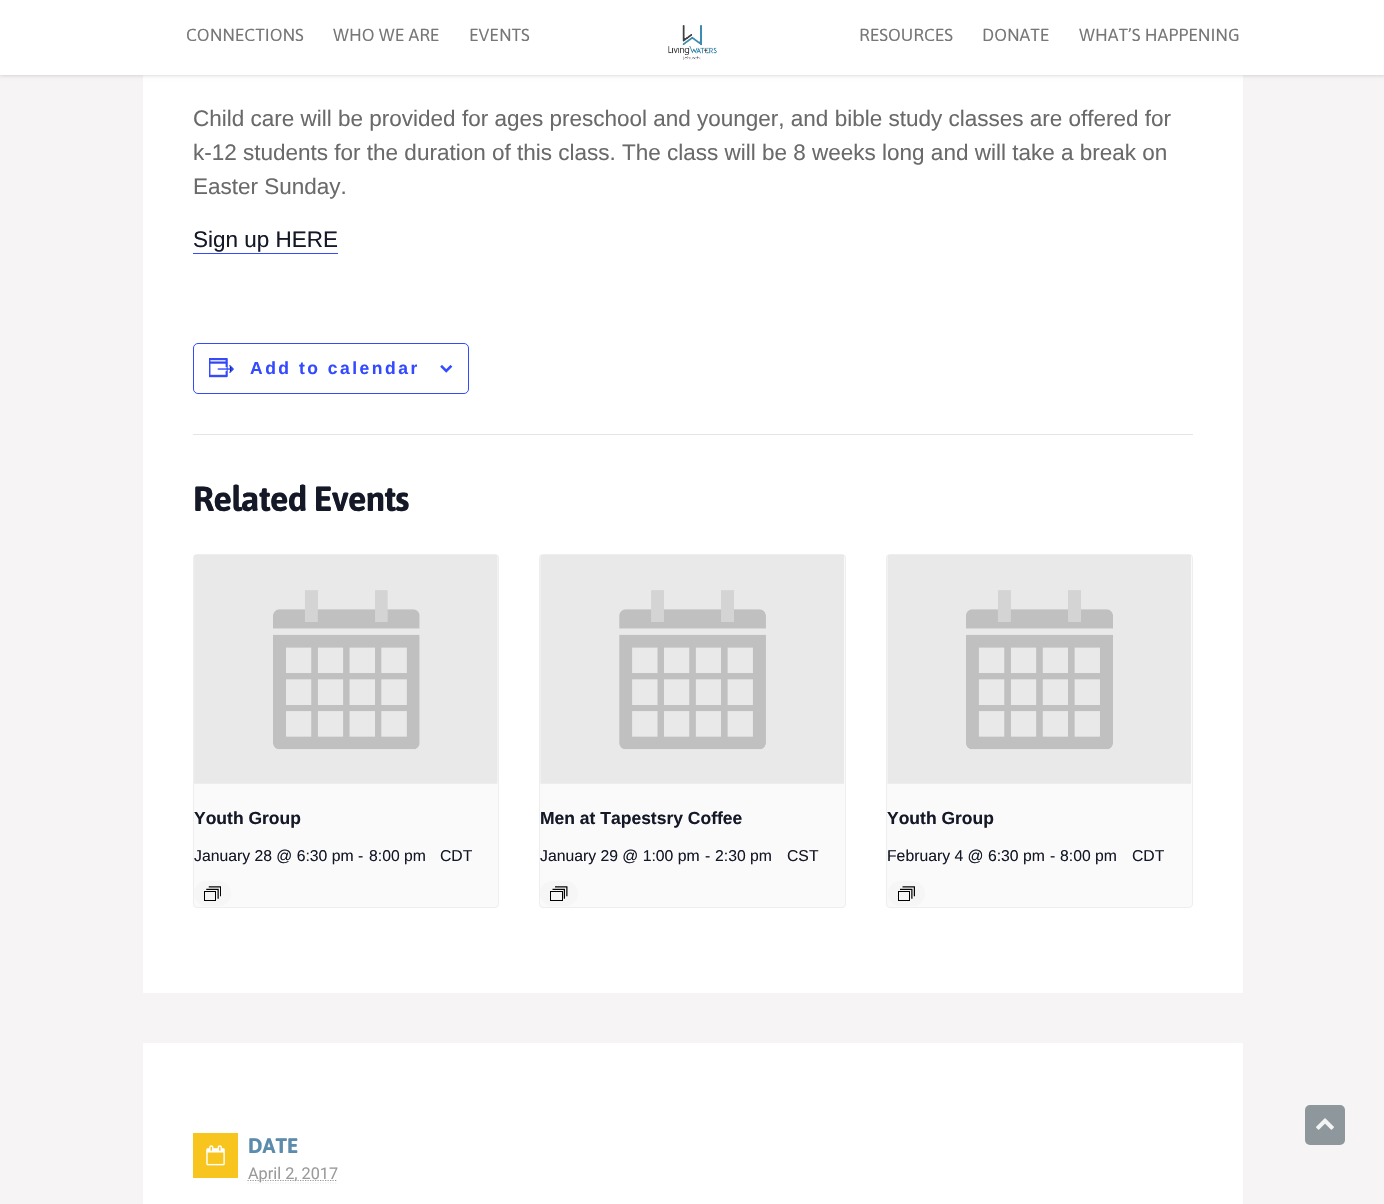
void draw(SkCanvas* canvas) {
    SkPaint paint;
    paint.setAntiAlias(true);
    auto spacedText = [&](const char* s, float x, float y, const SkFont& font, const SkPaint& ink, float letter, float word) {
        std::vector<SkGlyphID> glyphs(font.countText(s, strlen(s), SkTextEncoding::kUTF8));
        std::vector<float> xs(glyphs.size());
        font.textToGlyphs(s, strlen(s), SkTextEncoding::kUTF8, glyphs);
        font.getXPos(glyphs, xs, x);
        float extra = 0;
        for (size_t i = 0; i < glyphs.size(); i++) {
            xs[i] += extra;
            extra += letter + word * (glyphs[i] == font.unicharToGlyph(' '));
        }
        canvas->drawTextBlob(SkTextBlob::MakeFromPosHGlyphs(glyphs, xs, y, font), 0, 0, ink);
    };
    canvas->clear(0xFFF6F4F5);
    paint.setColor(0xFFFFFFFF);
    canvas->drawRect(SkRect::MakeXYWH(143, 75, 1100, 918), paint);
    paint.setColor(0x36000000);
    paint.setMaskFilter(SkMaskFilter::MakeBlur(kNormal_SkBlurStyle, 2));
    canvas->drawRect(SkRect::MakeXYWH(0, 0, 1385, 75), paint);
    paint.setMaskFilter(nullptr);
    paint.setColor(0xFFFFFFFF);
    canvas->drawRect(SkRect::MakeXYWH(0, 0, 1384, 75), paint);
    SkFont font1(fontMgr->matchFamilyStyle("Asap", SkFontStyle::Normal()), 17.5f);
    font1.setSubpixel(true);
    paint.setColor(0xFF777777);
    canvas->drawString("CONNECTIONS", 186, 41, font1, paint);
    canvas->drawString("WHO WE ARE", 333, 41, font1, paint);
    canvas->drawString("EVENTS", 469, 41, font1, paint);
    canvas->drawImageRect(SkImages::DeferredFromEncodedData(SkData::MakeFromFileName("img1.png")), SkRect::MakeXYWH(668, 25, 49, 35), SkSamplingOptions());
    canvas->drawString("RESOURCES", 859, 41, font1, paint);
    canvas->drawString("DONATE", 982, 41, font1, paint);
    canvas->drawString("WHAT’S HAPPENING", 1079, 41, font1, paint);
    SkFont font2(fontMgr->matchFamilyStyle("Liberation Sans", SkFontStyle::Normal()), 22.5f);
    font2.setSubpixel(true);
    paint.setColor(0xFF6A6A6A);
    canvas->drawString("Child care will be provided for ages preschool and younger, and bible study classes are offered for", 193, 126, font2, paint);
    canvas->drawString("k-12 students for the duration of this class. The class will be 8 weeks long and will take a break on", 193, 160, font2, paint);
    canvas->drawString("Easter Sunday.", 193, 194, font2, paint);
    paint.setColor(0xFF141827);
    canvas->drawString("Sign up HERE", 193, 247, font2, paint);
    paint.setColor(0xFF334AFF);
    canvas->drawRect(SkRect::MakeXYWH(193, 253, 145, 1), paint);
    paint.setStyle(SkPaint::kStroke_Style);
    paint.setStrokeWidth(1);
    canvas->drawRoundRect(SkRect::MakeXYWH(193.5f, 343.5f, 275, 50), 4.5f, 4.5f, paint);
    canvas->drawImageRect(SkImages::DeferredFromEncodedData(SkData::MakeFromFileName("img2.png")), SkRect::MakeXYWH(209, 358, 25, 20), SkSamplingOptions());
    SkFont font3(fontMgr->matchFamilyStyle("Liberation Sans", SkFontStyle::Bold()), 17.5f);
    font3.setSubpixel(true);
    paint.setStyle(SkPaint::kFill_Style);
    spacedText("Add to calendar", 250, 374, font3, paint, 2.5f, 0);
    canvas->drawImageRect(SkImages::DeferredFromEncodedData(SkData::MakeFromFileName("img3.png")), SkRect::MakeXYWH(440, 365, 13, 8), SkSamplingOptions());
    paint.setColor(0xFFE4E4E4);
    canvas->drawRect(SkRect::MakeXYWH(193, 434, 1000, 1), paint);
    SkFont font4(fontMgr->matchFamilyStyle("Asap", SkFontStyle::Bold()), 35);
    font4.setSubpixel(true);
    paint.setColor(0xFF141827);
    spacedText("Related Events", 193, 511, font4, paint, -1, 0);
    paint.setColor(0xFFFAFAFA);
    canvas->drawRoundRect(SkRect::MakeXYWH(193.5f, 554.5f, 305, 353), 3.5f, 3.5f, paint);
    paint.setStyle(SkPaint::kStroke_Style);
    paint.setColor(0xFFEEEEEE);
    canvas->drawRoundRect(SkRect::MakeXYWH(193.5f, 554.5f, 305, 353), 3.5f, 3.5f, paint);
    canvas->drawImageRect(SkImages::DeferredFromEncodedData(SkData::MakeFromFileName("img4.png")), SkRect::MakeXYWH(194, 555, 304, 229), SkSamplingOptions());
    paint.setStyle(SkPaint::kFill_Style);
    paint.setColor(0xFF141827);
    canvas->drawString("Youth Group", 194, 824, font3, paint);
    SkFont font5(fontMgr->matchFamilyStyle("Liberation Sans", SkFontStyle::Normal()), 15.75f);
    font5.setSubpixel(true);
    canvas->drawString("January 28 @ 6:30 pm", 194, 861, font5, paint);
    canvas->drawString("-", 358, 861, font5, paint);
    canvas->drawString("8:00 pm", 369, 861, font5, paint);
    canvas->drawString("CDT", 440, 861, font5, paint);
    paint.setColor(0xFFF7F6F6);
    canvas->drawRoundRect(SkRect::MakeXYWH(194, 881, 37, 25), 12.5f, 12.5f, paint);
    canvas->drawImageRect(SkImages::DeferredFromEncodedData(SkData::MakeFromFileName("img5.png")), SkRect::MakeXYWH(204, 886, 17, 15), SkSamplingOptions());
    paint.setColor(0xFFFAFAFA);
    canvas->drawRoundRect(SkRect::MakeXYWH(539.5f, 554.5f, 306, 353), 3.5f, 3.5f, paint);
    paint.setStyle(SkPaint::kStroke_Style);
    paint.setColor(0xFFEEEEEE);
    canvas->drawRoundRect(SkRect::MakeXYWH(539.5f, 554.5f, 306, 353), 3.5f, 3.5f, paint);
    canvas->drawImageRect(SkImages::DeferredFromEncodedData(SkData::MakeFromFileName("img6.png")), SkRect::MakeXYWH(540, 555, 304, 229), SkSamplingOptions());
    paint.setStyle(SkPaint::kFill_Style);
    paint.setColor(0xFF141827);
    canvas->drawString("Men at Tapestsry Coffee", 540, 824, font3, paint);
    canvas->drawString("January 29 @ 1:00 pm", 540, 861, font5, paint);
    canvas->drawString("-", 705, 861, font5, paint);
    canvas->drawString("2:30 pm", 715, 861, font5, paint);
    canvas->drawString("CST", 787, 861, font5, paint);
    paint.setColor(0xFFF7F6F6);
    canvas->drawRoundRect(SkRect::MakeXYWH(540, 881, 38, 25), 12.5f, 12.5f, paint);
    canvas->drawImageRect(SkImages::DeferredFromEncodedData(SkData::MakeFromFileName("img7.png")), SkRect::MakeXYWH(550, 886, 18, 15), SkSamplingOptions());
    paint.setColor(0xFFFAFAFA);
    canvas->drawRoundRect(SkRect::MakeXYWH(886.5f, 554.5f, 306, 353), 3.5f, 3.5f, paint);
    paint.setStyle(SkPaint::kStroke_Style);
    paint.setColor(0xFFEEEEEE);
    canvas->drawRoundRect(SkRect::MakeXYWH(886.5f, 554.5f, 306, 353), 3.5f, 3.5f, paint);
    canvas->drawImageRect(SkImages::DeferredFromEncodedData(SkData::MakeFromFileName("img8.png")), SkRect::MakeXYWH(887, 555, 304, 229), SkSamplingOptions());
    paint.setStyle(SkPaint::kFill_Style);
    paint.setColor(0xFF141827);
    canvas->drawString("Youth Group", 887, 824, font3, paint);
    canvas->drawString("February 4 @ 6:30 pm", 887, 861, font5, paint);
    canvas->drawString("-", 1050, 861, font5, paint);
    canvas->drawString("8:00 pm", 1060, 861, font5, paint);
    canvas->drawString("CDT", 1132, 861, font5, paint);
    paint.setColor(0xFFF7F6F6);
    canvas->drawRoundRect(SkRect::MakeXYWH(888, 881, 37, 25), 12.5f, 12.5f, paint);
    canvas->drawImageRect(SkImages::DeferredFromEncodedData(SkData::MakeFromFileName("img9.png")), SkRect::MakeXYWH(898, 886, 17, 15), SkSamplingOptions());
    paint.setColor(0xFFFFFFFF);
    canvas->drawRect(SkRect::MakeXYWH(143, 1043, 1100, 161), paint);
    paint.setColor(0xFFF8C51E);
    canvas->drawRect(SkRect::MakeXYWH(193, 1133, 45, 45), paint);
    canvas->drawImageRect(SkImages::DeferredFromEncodedData(SkData::MakeFromFileName("img10.png")), SkRect::MakeXYWH(206, 1145, 19, 21), SkSamplingOptions());
    SkFont font6(fontMgr->matchFamilyStyle("Asap", SkFontStyle::Bold()), 21);
    font6.setSubpixel(true);
    paint.setColor(0xFF5D8BAC);
    canvas->drawString("DATE", 248, 1153, font6, paint);
    paint.setStyle(SkPaint::kStroke_Style);
    paint.setStrokeWidth(1.2f);
    paint.setColor(0xFFEBEBEB);
    paint.setPathEffect(SkDashPathEffect::Make({{1.25f, 1.25f}}, 0));
    canvas->drawPath(SkPathBuilder().moveTo(247.5f, 1183).lineTo(337.5f, 1183).detach(), paint);
    paint.setPathEffect(nullptr);
    paint.setColor(0xFF9A9A9A);
    paint.setPathEffect(SkDashPathEffect::Make({{1.25f, 1.25f}}, 0));
    canvas->drawPath(SkPathBuilder().moveTo(247.5f, 1180.5f).lineTo(337.5f, 1180.5f).detach(), paint);
    paint.setPathEffect(nullptr);
    SkFont font7(fontMgr->matchFamilyStyle("Roboto", SkFontStyle::Normal()), 16.25f);
    font7.setSubpixel(true);
    paint.setStyle(SkPaint::kFill_Style);
    canvas->drawString("April 2, 2017", 248, 1179, font7, paint);
    paint.setColor(0xFF8E979B);
    canvas->drawRoundRect(SkRect::MakeXYWH(1305, 1105, 40, 40), 5, 5, paint);
    canvas->drawImageRect(SkImages::DeferredFromEncodedData(SkData::MakeFromFileName("img11.png")), SkRect::MakeXYWH(1316, 1118, 18, 12), SkSamplingOptions());
}
